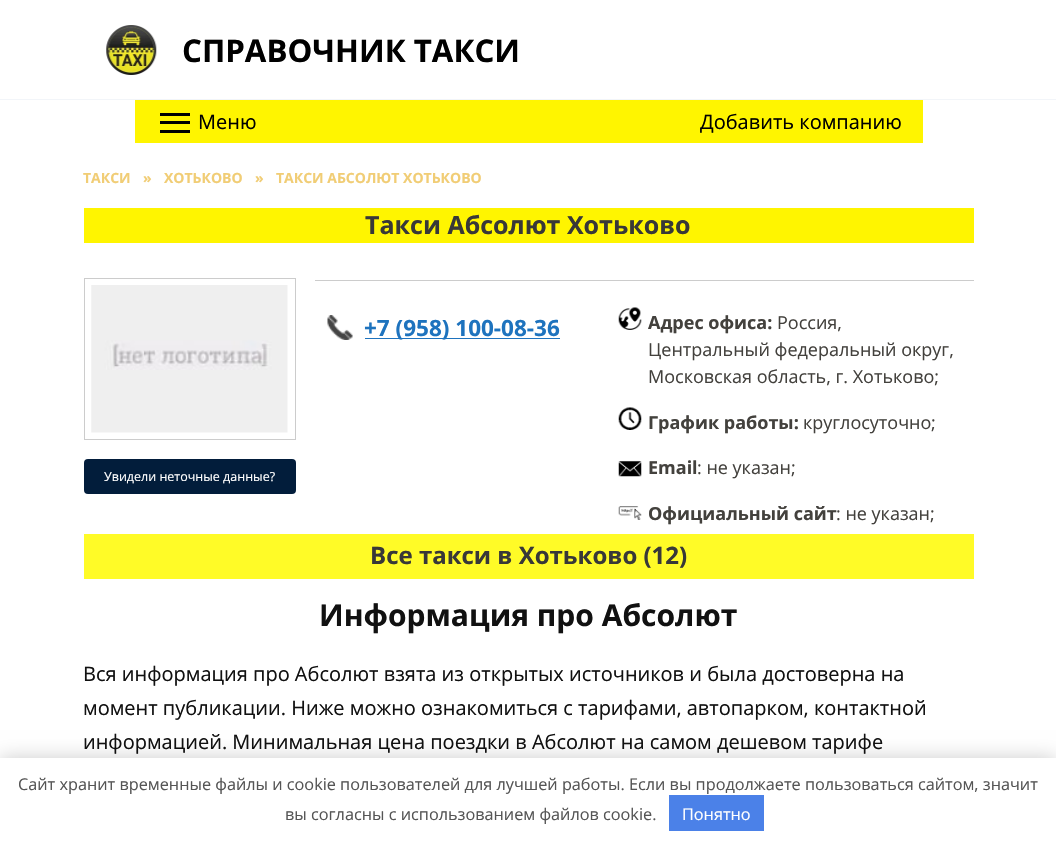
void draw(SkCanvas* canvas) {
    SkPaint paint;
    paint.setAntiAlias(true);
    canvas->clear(0xFFFFFFFF);
    paint.setColor(0xFFF2F5F9);
    canvas->drawRect(SkRect::MakeXYWH(0, 99, 1056, 1), paint);
    canvas->drawImageRect(SkImages::DeferredFromEncodedData(SkData::MakeFromFileName("img1.png")), SkRect::MakeXYWH(106, 25, 51, 50), SkSamplingOptions());
    SkFont font1(fontMgr->matchFamilyStyle("Open Sans", SkFontStyle::Bold()), 31.25f);
    font1.setSubpixel(true);
    paint.setColor(0xFF000000);
    canvas->drawString("СПРАВОЧНИК ТАКСИ", 182, 62, font1, paint);
    paint.setColor(0xFFFFF500);
    canvas->drawRect(SkRect::MakeXYWH(135, 100, 788, 43), paint);
    paint.setColor(0xFF000000);
    canvas->drawRect(SkRect::MakeXYWH(160, 113, 30, 3), paint);
    canvas->drawRect(SkRect::MakeXYWH(160, 121, 30, 3), paint);
    canvas->drawRect(SkRect::MakeXYWH(160, 130, 30, 3), paint);
    SkFont font2(fontMgr->matchFamilyStyle("Open Sans", SkFontStyle::Normal()), 20);
    font2.setSubpixel(true);
    canvas->drawString("Меню", 198, 129, font2, paint);
    canvas->drawString("Добавить компанию", 700, 129, font2, paint);
    SkFont font3(fontMgr->matchFamilyStyle("Open Sans", SkFontStyle::Bold()), 14);
    font3.setSubpixel(true);
    paint.setColor(0xFFF1CD75);
    canvas->drawString("ТАКСИ", 83, 183, font3, paint);
    canvas->drawString("»", 143, 183, font3, paint);
    canvas->drawString("ХОТЬКОВО", 164, 183, font3, paint);
    canvas->drawString("»", 255, 183, font3, paint);
    canvas->drawString("ТАКСИ АБСОЛЮТ ХОТЬКОВО", 276, 183, font3, paint);
    paint.setColor(0xFFFFF500);
    canvas->drawRect(SkRect::MakeXYWH(84, 208, 890, 35), paint);
    SkFont font4(fontMgr->matchFamilyStyle("Open Sans", SkFontStyle::Bold()), 25);
    font4.setSubpixel(true);
    paint.setColor(0xFF383838);
    canvas->drawString("Такси Абсолют Хотьково", 365, 234, font4, paint);
    paint.setStyle(SkPaint::kStroke_Style);
    paint.setStrokeWidth(1);
    paint.setColor(0xFFCCCCCC);
    canvas->drawRect(SkRect::MakeXYWH(84.5f, 278.5f, 211, 161), paint);
    canvas->drawImageRect(SkImages::DeferredFromEncodedData(SkData::MakeFromFileName("img2.png")), SkRect::MakeXYWH(91, 285, 197, 148), SkSamplingOptions());
    paint.setStyle(SkPaint::kFill_Style);
    canvas->drawRect(SkRect::MakeXYWH(315, 280, 659, 1), paint);
    canvas->drawImageRect(SkImages::DeferredFromEncodedData(SkData::MakeFromFileName("img3.png")), SkRect::MakeXYWH(327, 315, 26, 25), SkSamplingOptions());
    paint.setColor(0xFF1E73BE);
    canvas->drawRect(SkRect::MakeXYWH(365, 338, 195, 1), paint);
    SkFont font5(fontMgr->matchFamilyStyle("Open Sans", SkFontStyle::Bold()), 22.5f);
    font5.setSubpixel(true);
    canvas->drawString("+7 (958) 100-08-36", 364, 336, font5, paint);
    canvas->drawImageRect(SkImages::DeferredFromEncodedData(SkData::MakeFromFileName("img4.png")), SkRect::MakeXYWH(618, 307, 24, 23), SkSamplingOptions());
    SkFont font6(fontMgr->matchFamilyStyle("Open Sans", SkFontStyle::Bold()), 18);
    font6.setSubpixel(true);
    paint.setColor(0xFF43413D);
    canvas->drawString("Адрес офиса:", 648, 329, font6, paint);
    SkFont font7(fontMgr->matchFamilyStyle("Open Sans", SkFontStyle::Normal()), 18);
    font7.setSubpixel(true);
    canvas->drawString("Россия,", 777, 329, font7, paint);
    canvas->drawString("Центральный федеральный округ,", 648, 356, font7, paint);
    canvas->drawString("Московская область, г. Хотьково;", 648, 383, font7, paint);
    canvas->drawImageRect(SkImages::DeferredFromEncodedData(SkData::MakeFromFileName("img5.png")), SkRect::MakeXYWH(618, 407, 24, 23), SkSamplingOptions());
    canvas->drawString("График работы:", 648, 429, font6, paint);
    canvas->drawString("круглосуточно", 803, 429, font7, paint);
    canvas->drawString(";", 931, 429, font7, paint);
    canvas->drawImageRect(SkImages::DeferredFromEncodedData(SkData::MakeFromFileName("img6.png")), SkRect::MakeXYWH(618, 461, 24, 16), SkSamplingOptions());
    canvas->drawString("Email", 648, 474, font6, paint);
    canvas->drawString(": не указан;", 697, 474, font7, paint);
    canvas->drawImageRect(SkImages::DeferredFromEncodedData(SkData::MakeFromFileName("img7.png")), SkRect::MakeXYWH(618, 506, 24, 14), SkSamplingOptions());
    canvas->drawString("Официальный сайт", 648, 520, font6, paint);
    canvas->drawString(": не указан;", 836, 520, font7, paint);
    paint.setColor(0xFF021D3B);
    canvas->drawRoundRect(SkRect::MakeXYWH(84, 459, 212, 35), 4, 4, paint);
    SkFont font8(fontMgr->matchFamilyStyle("Open Sans", SkFontStyle::Normal()), 12.5f);
    font8.setSubpixel(true);
    paint.setColor(0xFFFFFFFF);
    canvas->drawString("Увидели неточные данные?", 104, 481, font8, paint);
    paint.setColor(0xFFFFFB27);
    canvas->drawRect(SkRect::MakeXYWH(84, 534, 890, 45), paint);
    SkFont font9(fontMgr->matchFamilyStyle("Open Sans", SkFontStyle::Bold()), 24);
    font9.setSubpixel(true);
    paint.setColor(0xFF383838);
    canvas->drawString("Все такси в Хотьково (12)", 370, 564, font9, paint);
    SkFont font10(fontMgr->matchFamilyStyle("Open Sans", SkFontStyle::Bold()), 30);
    font10.setSubpixel(true);
    paint.setColor(0xFF111111);
    canvas->drawString("Информация про Абсолют", 319, 626, font10, paint);
    canvas->drawString("Вся информация про Абсолют взята из открытых источников и была достоверна на", 83, 681, font2, paint);
    canvas->drawString("момент публикации. Ниже можно ознакомиться с тарифами, автопарком, контактной", 83, 715, font2, paint);
    canvas->drawString("информацией. Минимальная цена поездки в Абсолют на самом дешевом тарифе", 83, 749, font2, paint);
    paint.setColor(0x33000000);
    paint.setMaskFilter(SkMaskFilter::MakeBlur(kNormal_SkBlurStyle, 9.5f));
    canvas->drawRect(SkRect::MakeXYWH(0, 758, 1056, 88), paint);
    paint.setMaskFilter(nullptr);
    paint.setColor(0xFFFFFFFF);
    canvas->drawRect(SkRect::MakeXYWH(0, 758, 1056, 88), paint);
    SkFont font11(fontMgr->matchFamilyStyle("Open Sans", SkFontStyle::Normal()), 16.25f);
    font11.setSubpixel(true);
    paint.setColor(0xFF555555);
    canvas->drawString("Сайт хранит временные файлы и cookie пользователей для лучшей работы. Если вы продолжаете пользоваться сайтом, значит", 18, 790, font11, paint);
    canvas->drawString("вы согласны с использованием файлов cookie.", 285, 820, font11, paint);
    paint.setColor(0xFF4B81E8);
    canvas->drawRect(SkRect::MakeXYWH(669, 795, 95, 36), paint);
    paint.setColor(0xFFFFFFFF);
    canvas->drawString("Понятно", 682, 820, font11, paint);
}
